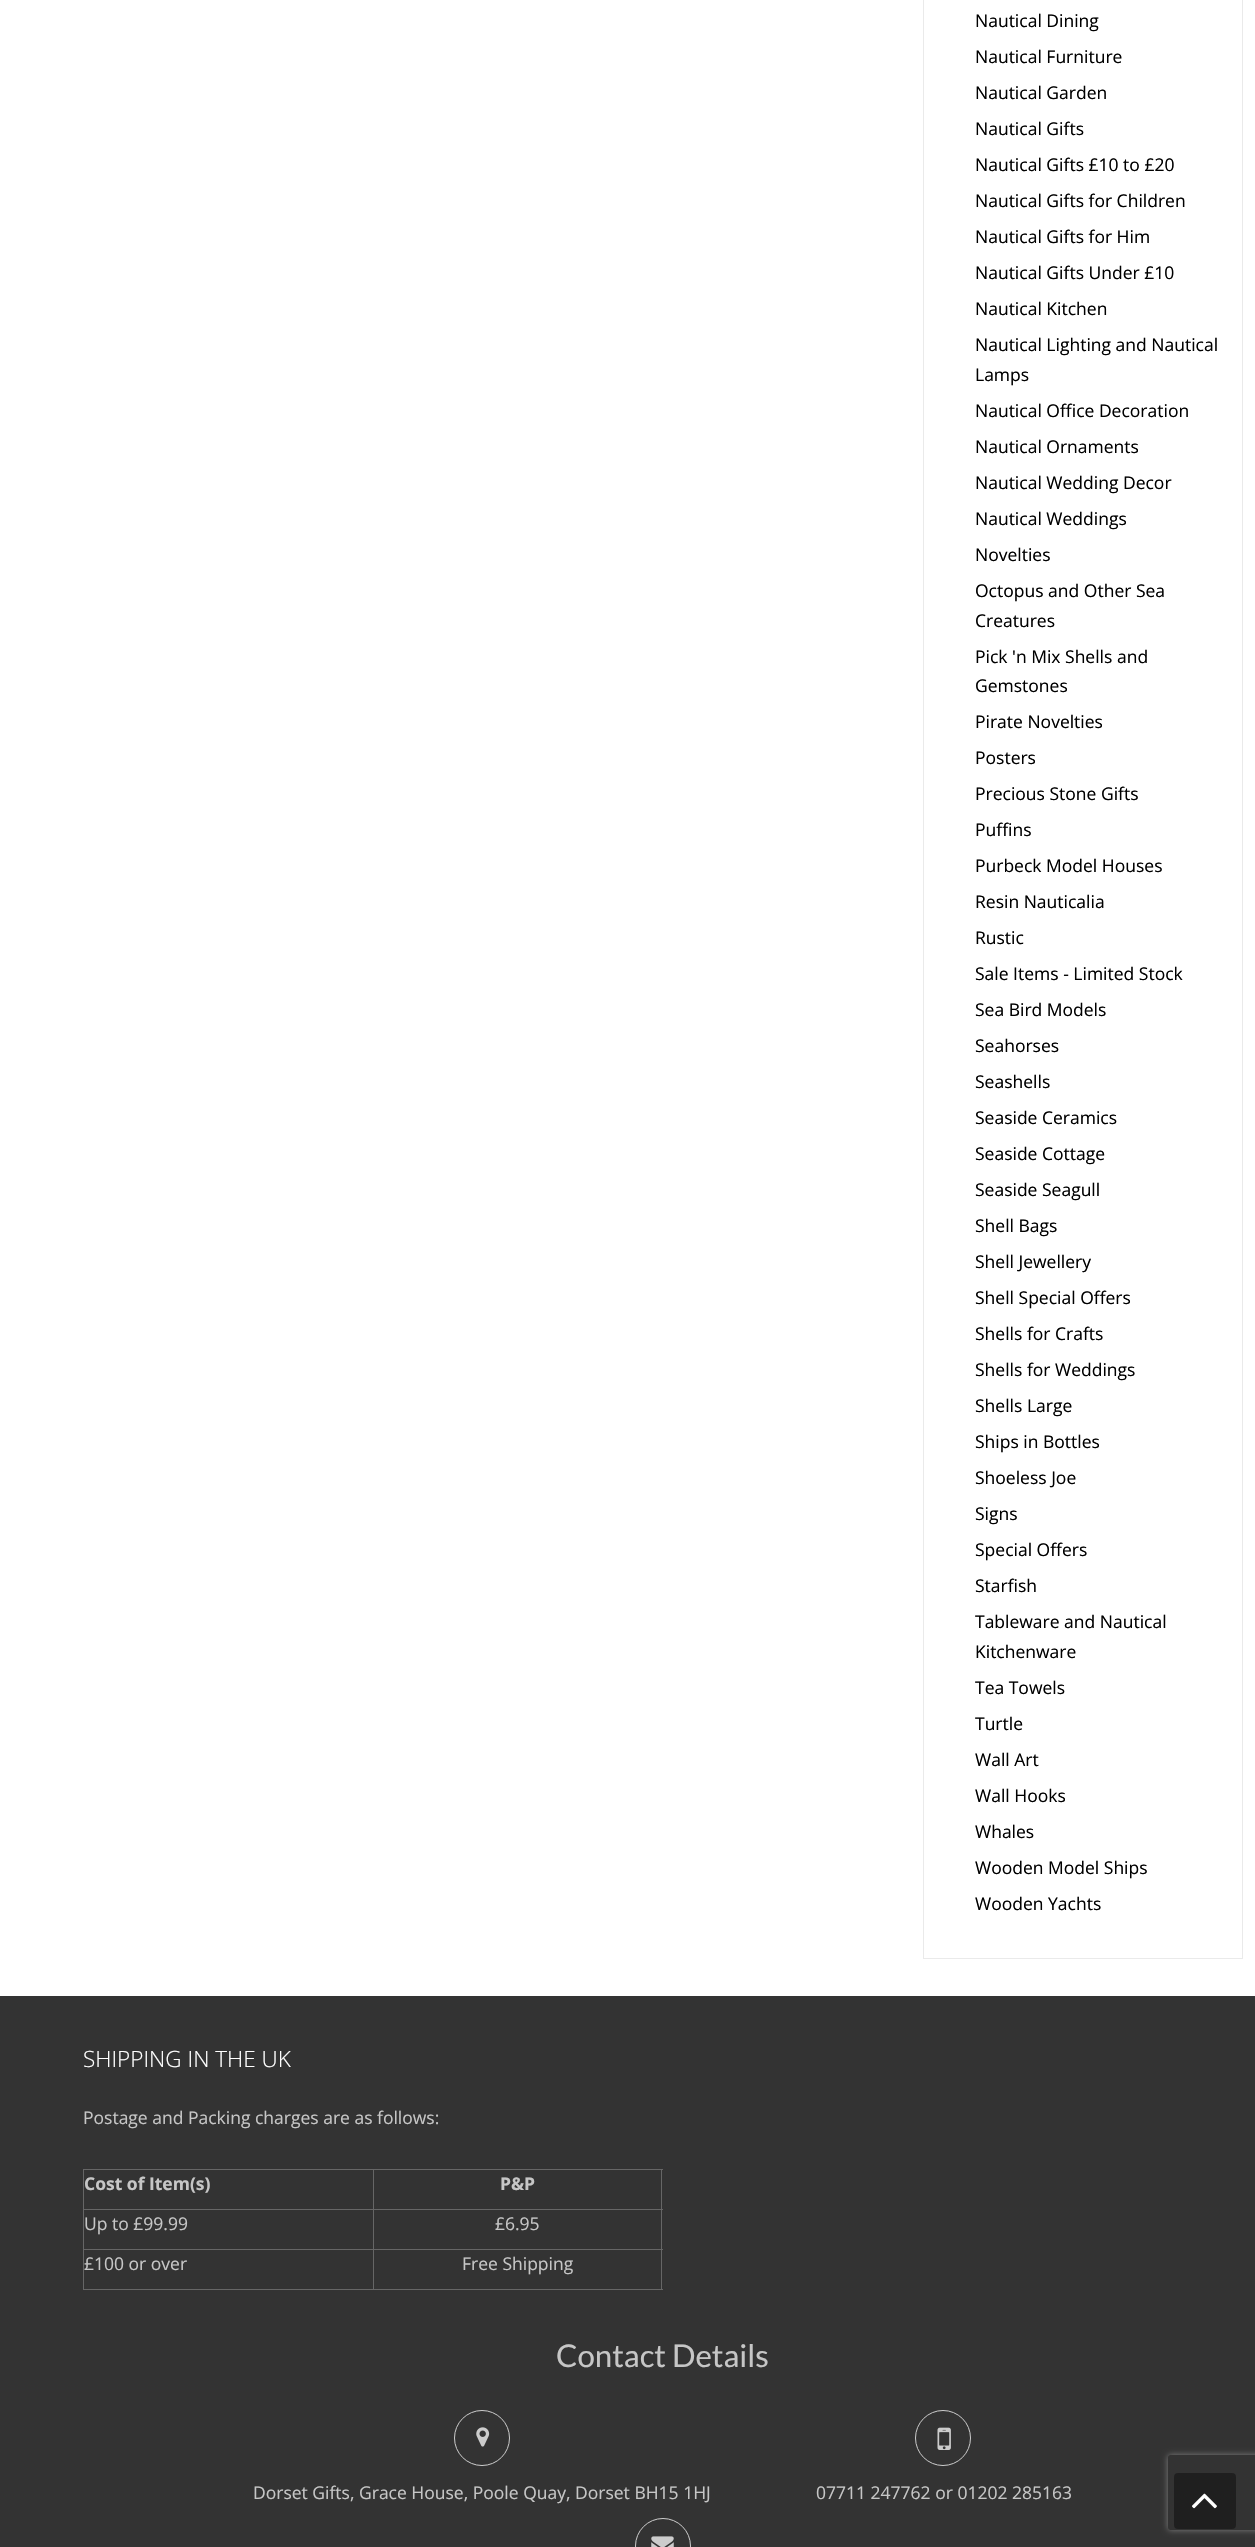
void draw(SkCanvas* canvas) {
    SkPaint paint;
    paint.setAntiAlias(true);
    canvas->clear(0xFFFFFFFF);
    paint.setStyle(SkPaint::kStroke_Style);
    paint.setStrokeWidth(1);
    paint.setColor(0xFFEAEAEA);
    canvas->drawRect(SkRect::MakeXYWH(923.5f, -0.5f, 319, 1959), paint);
    SkFont font1(fontMgr->matchFamilyStyle("Open Sans", SkFontStyle::Normal()), 17.5f);
    font1.setSubpixel(true);
    paint.setStyle(SkPaint::kFill_Style);
    paint.setColor(0xFF000000);
    canvas->drawString("Nautical Dining", 975, 27, font1, paint);
    canvas->drawString("Nautical Furniture", 975, 63, font1, paint);
    canvas->drawString("Nautical Garden", 975, 99, font1, paint);
    canvas->drawString("Nautical Gifts", 975, 135, font1, paint);
    canvas->drawString("Nautical Gifts £10 to £20", 975, 171, font1, paint);
    canvas->drawString("Nautical Gifts for Children", 975, 207, font1, paint);
    canvas->drawString("Nautical Gifts for Him", 975, 243, font1, paint);
    canvas->drawString("Nautical Gifts Under £10", 975, 279, font1, paint);
    canvas->drawString("Nautical Kitchen", 975, 315, font1, paint);
    canvas->drawString("Nautical Lighting and Nautical", 975, 351, font1, paint);
    canvas->drawString("Lamps", 975, 381, font1, paint);
    canvas->drawString("Nautical Office Decoration", 975, 417, font1, paint);
    canvas->drawString("Nautical Ornaments", 975, 453, font1, paint);
    canvas->drawString("Nautical Wedding Decor", 975, 489, font1, paint);
    canvas->drawString("Nautical Weddings", 975, 525, font1, paint);
    canvas->drawString("Novelties", 975, 561, font1, paint);
    canvas->drawString("Octopus and Other Sea", 975, 597, font1, paint);
    canvas->drawString("Creatures", 975, 627, font1, paint);
    canvas->drawString("Pick 'n Mix Shells and", 975, 663, font1, paint);
    canvas->drawString("Gemstones", 975, 692, font1, paint);
    canvas->drawString("Pirate Novelties", 975, 728, font1, paint);
    canvas->drawString("Posters", 975, 764, font1, paint);
    canvas->drawString("Precious Stone Gifts", 975, 800, font1, paint);
    canvas->drawString("Puffins", 975, 836, font1, paint);
    canvas->drawString("Purbeck Model Houses", 975, 872, font1, paint);
    canvas->drawString("Resin Nauticalia", 975, 908, font1, paint);
    canvas->drawString("Rustic", 975, 944, font1, paint);
    canvas->drawString("Sale Items - Limited Stock", 975, 980, font1, paint);
    canvas->drawString("Sea Bird Models", 975, 1016, font1, paint);
    canvas->drawString("Seahorses", 975, 1052, font1, paint);
    canvas->drawString("Seashells", 975, 1088, font1, paint);
    canvas->drawString("Seaside Ceramics", 975, 1124, font1, paint);
    canvas->drawString("Seaside Cottage", 975, 1160, font1, paint);
    canvas->drawString("Seaside Seagull", 975, 1196, font1, paint);
    canvas->drawString("Shell Bags", 975, 1232, font1, paint);
    canvas->drawString("Shell Jewellery", 975, 1268, font1, paint);
    canvas->drawString("Shell Special Offers", 975, 1304, font1, paint);
    canvas->drawString("Shells for Crafts", 975, 1340, font1, paint);
    canvas->drawString("Shells for Weddings", 975, 1376, font1, paint);
    canvas->drawString("Shells Large", 975, 1412, font1, paint);
    canvas->drawString("Ships in Bottles", 975, 1448, font1, paint);
    canvas->drawString("Shoeless Joe", 975, 1484, font1, paint);
    canvas->drawString("Signs", 975, 1520, font1, paint);
    canvas->drawString("Special Offers", 975, 1556, font1, paint);
    canvas->drawString("Starfish", 975, 1592, font1, paint);
    canvas->drawString("Tableware and Nautical", 975, 1628, font1, paint);
    canvas->drawString("Kitchenware", 975, 1658, font1, paint);
    canvas->drawString("Tea Towels", 975, 1694, font1, paint);
    canvas->drawString("Turtle", 975, 1730, font1, paint);
    canvas->drawString("Wall Art", 975, 1766, font1, paint);
    canvas->drawString("Wall Hooks", 975, 1802, font1, paint);
    canvas->drawString("Whales", 975, 1838, font1, paint);
    canvas->drawString("Wooden Model Ships", 975, 1874, font1, paint);
    canvas->drawString("Wooden Yachts", 975, 1910, font1, paint);
    paint.setColor(0xFF333333);
    canvas->drawRect(SkRect::MakeXYWH(0, 1996, 1255, 551), paint);
    SkFont font2(fontMgr->matchFamilyStyle("Open Sans", SkFontStyle(300, SkFontStyle::kNormal_Width, SkFontStyle::kUpright_Slant)), 22.5f);
    font2.setSubpixel(true);
    paint.setColor(0xFFFFFFFF);
    canvas->drawString("SHIPPING IN THE UK", 83, 2067, font2, paint);
    paint.setColor(0xFFC6C6C6);
    canvas->drawString("Postage and Packing charges are as follows:", 83, 2124, font1, paint);
    paint.setColor(0xFF666666);
    canvas->drawRect(SkRect::MakeXYWH(83, 2169, 580, 1), paint);
    canvas->drawRect(SkRect::MakeXYWH(661, 2169, 1, 121), paint);
    canvas->drawRect(SkRect::MakeXYWH(83, 2289, 580, 1), paint);
    canvas->drawRect(SkRect::MakeXYWH(83, 2169, 1, 121), paint);
    SkFont font3(fontMgr->matchFamilyStyle("Open Sans", SkFontStyle::Bold()), 17.5f);
    font3.setSubpixel(true);
    paint.setColor(0xFFC6C6C6);
    canvas->drawString("Cost of Item(s)", 84, 2190, font3, paint);
    paint.setColor(0xFF666666);
    canvas->drawRect(SkRect::MakeXYWH(373, 2209, 290, 1), paint);
    canvas->drawRect(SkRect::MakeXYWH(373, 2249, 290, 1), paint);
    canvas->drawRect(SkRect::MakeXYWH(373, 2249, 1, 41), paint);
    canvas->drawRect(SkRect::MakeXYWH(83, 2249, 291, 1), paint);
    canvas->drawRect(SkRect::MakeXYWH(373, 2209, 1, 41), paint);
    canvas->drawRect(SkRect::MakeXYWH(83, 2209, 291, 1), paint);
    canvas->drawRect(SkRect::MakeXYWH(373, 2169, 1, 41), paint);
    paint.setColor(0xFFC6C6C6);
    canvas->drawString("P&P", 500, 2190, font3, paint);
    canvas->drawString("Up to £99.99", 84, 2230, font1, paint);
    canvas->drawString("£6.95", 495, 2230, font1, paint);
    canvas->drawString("£100 or over", 84, 2270, font1, paint);
    canvas->drawString("Free Shipping", 462, 2270, font1, paint);
    SkFont font4(fontMgr->matchFamilyStyle("Lato", SkFontStyle::Normal()), 31.25f);
    font4.setSubpixel(true);
    canvas->drawString("Contact Details", 556, 2367, font4, paint);
    paint.setStyle(SkPaint::kStroke_Style);
    paint.setColor(0xFFCCCCCC);
    canvas->drawCircle(482, 2438, 27.5f, paint);
    canvas->drawImageRect(SkImages::DeferredFromEncodedData(SkData::MakeFromFileName("img1.png")), SkRect::MakeXYWH(476, 2427, 14, 20), SkSamplingOptions());
    paint.setStyle(SkPaint::kFill_Style);
    paint.setColor(0xFFC6C6C6);
    canvas->drawString("Dorset Gifts, Grace House, Poole Quay, Dorset BH15 1HJ", 253, 2499, font1, paint);
    paint.setStyle(SkPaint::kStroke_Style);
    paint.setColor(0xFFCCCCCC);
    canvas->drawCircle(943, 2438, 27.5f, paint);
    canvas->drawImageRect(SkImages::DeferredFromEncodedData(SkData::MakeFromFileName("img2.png")), SkRect::MakeXYWH(937, 2427, 14, 23), SkSamplingOptions());
    paint.setStyle(SkPaint::kFill_Style);
    paint.setColor(0xFFC6C6C6);
    canvas->drawString("07711 247762 or 01202 285163", 816, 2499, font1, paint);
    paint.setStyle(SkPaint::kStroke_Style);
    paint.setColor(0xFFCCCCCC);
    canvas->drawCircle(663, 2546, 27.5f, paint);
    canvas->drawImageRect(SkImages::DeferredFromEncodedData(SkData::MakeFromFileName("img3.png")), SkRect::MakeXYWH(651, 2536, 23, 11), SkSamplingOptions());
    canvas->save();
    canvas->clipPath(SkPathBuilder(SkPathFillType::kEvenOdd).moveTo(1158, 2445).lineTo(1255, 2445).lineTo(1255, 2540).lineTo(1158, 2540).close().moveTo(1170.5f, 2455).lineTo(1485.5f, 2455).cubicTo(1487, 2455, 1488, 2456, 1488, 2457.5f).lineTo(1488, 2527.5f).cubicTo(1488, 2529, 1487, 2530, 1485.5f, 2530).lineTo(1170.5f, 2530).cubicTo(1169, 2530, 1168, 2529, 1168, 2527.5f).lineTo(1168, 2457.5f).cubicTo(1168, 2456, 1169, 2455, 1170.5f, 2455).close().detach(), true);
    paint.setStyle(SkPaint::kFill_Style);
    paint.setColor(0xFF808080);
    paint.setMaskFilter(SkMaskFilter::MakeBlur(kNormal_SkBlurStyle, 3));
    canvas->drawRoundRect(SkRect::MakeXYWH(1168, 2455, 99, 75), 2.5f, 2.5f, paint);
    paint.setMaskFilter(nullptr);
    canvas->restore();
    paint.setColor(0xFF1F1F1F);
    canvas->drawRoundRect(SkRect::MakeXYWH(1174, 2473, 62, 56), 4, 4, paint);
    canvas->drawImageRect(SkImages::DeferredFromEncodedData(SkData::MakeFromFileName("img4.png")), SkRect::MakeXYWH(1192, 2493, 25, 16), SkSamplingOptions());
}
